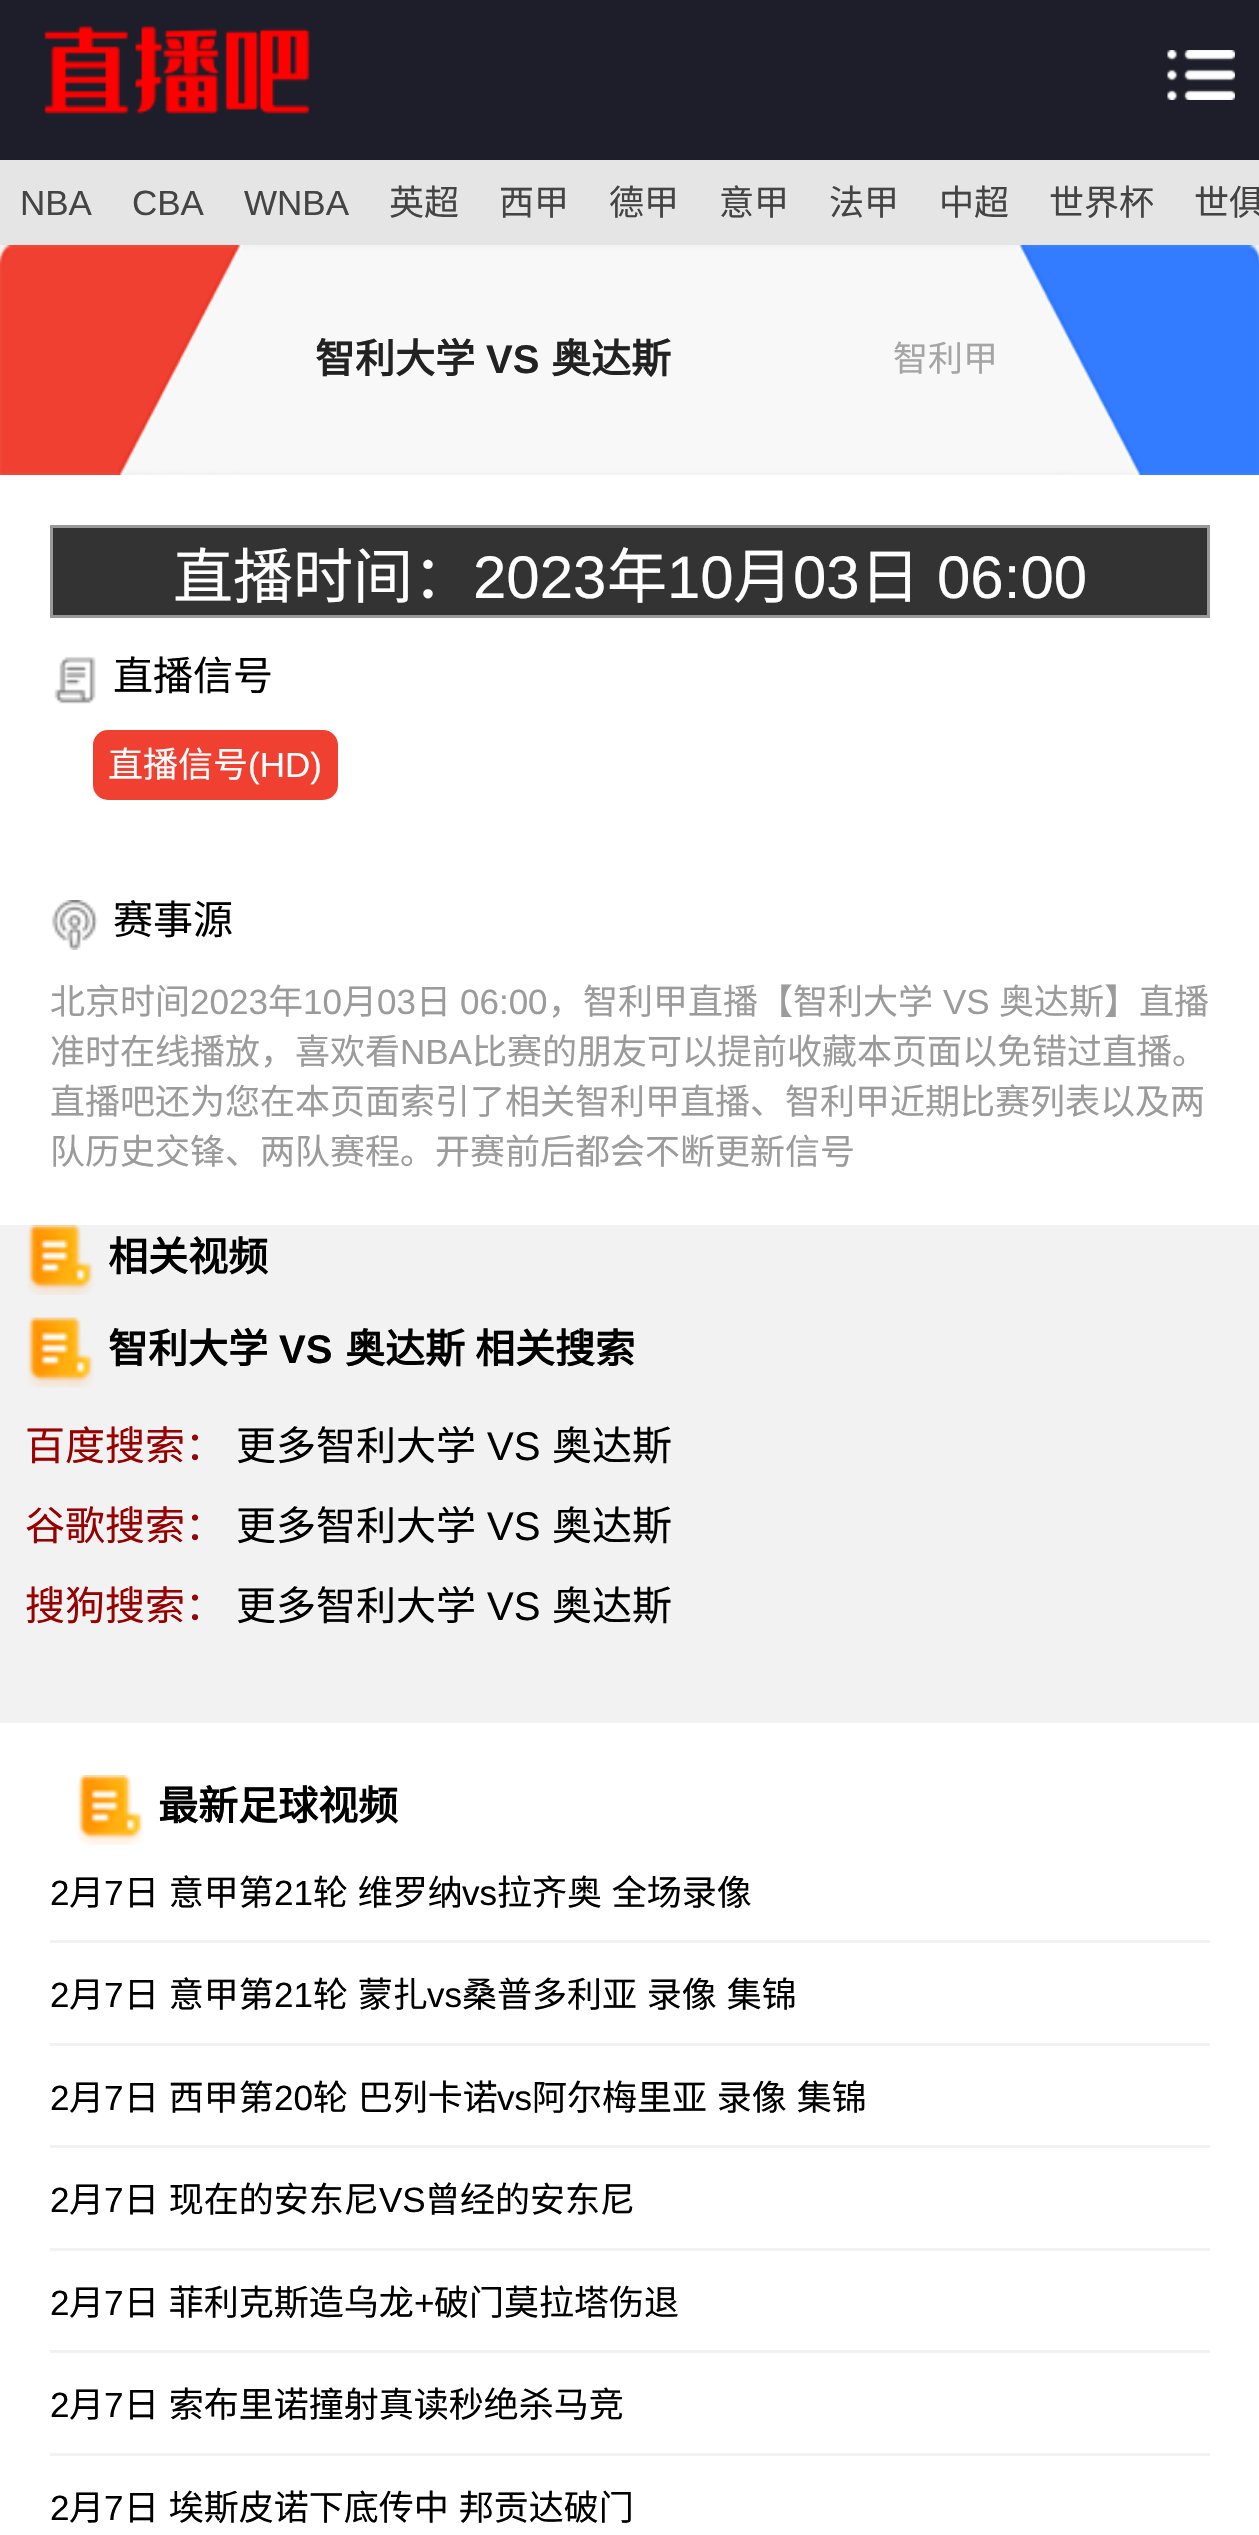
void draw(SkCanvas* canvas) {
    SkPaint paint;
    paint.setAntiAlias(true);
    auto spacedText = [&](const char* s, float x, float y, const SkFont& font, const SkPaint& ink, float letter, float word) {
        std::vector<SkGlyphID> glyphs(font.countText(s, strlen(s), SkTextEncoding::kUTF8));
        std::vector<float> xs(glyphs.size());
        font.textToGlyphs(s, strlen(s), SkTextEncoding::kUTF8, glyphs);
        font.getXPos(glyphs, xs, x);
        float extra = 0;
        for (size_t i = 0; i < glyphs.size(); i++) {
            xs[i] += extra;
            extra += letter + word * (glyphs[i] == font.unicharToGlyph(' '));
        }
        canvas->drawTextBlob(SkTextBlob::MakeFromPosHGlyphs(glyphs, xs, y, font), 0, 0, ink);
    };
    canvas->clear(0xFFF2F2F2);
    paint.setColor(0xFF1D1E2A);
    canvas->drawRect(SkRect::MakeXYWH(0, 0, 1259, 160), paint);
    canvas->drawImageRect(SkImages::DeferredFromEncodedData(SkData::MakeFromFileName("img1.png")), SkRect::MakeXYWH(44, 26, 266, 88), SkSamplingOptions());
    canvas->drawImageRect(SkImages::DeferredFromEncodedData(SkData::MakeFromFileName("img2.png")), SkRect::MakeXYWH(1167, 50, 68, 50), SkSamplingOptions());
    paint.setColor(0xFFE5E5E5);
    canvas->drawRect(SkRect::MakeXYWH(0, 160, 1259, 85), paint);
    SkFont font1(fontMgr->matchFamilyStyle("Liberation Sans", SkFontStyle::Normal()), 35);
    font1.setSubpixel(true);
    paint.setColor(0xFF444444);
    canvas->drawString("NBA", 20, 215, font1, paint);
    canvas->drawString("CBA", 132, 215, font1, paint);
    canvas->drawString("WNBA", 244, 215, font1, paint);
    SkFont font2(fontMgr->matchFamilyStyle("Noto Sans CJK SC", SkFontStyle::Normal()), 35);
    font2.setSubpixel(true);
    canvas->drawString("英超", 389, 215, font2, paint);
    canvas->drawString("西甲", 499, 215, font2, paint);
    canvas->drawString("德甲", 609, 215, font2, paint);
    canvas->drawString("意甲", 719, 215, font2, paint);
    canvas->drawString("法甲", 829, 215, font2, paint);
    canvas->drawString("中超", 939, 215, font2, paint);
    canvas->drawString("世界杯", 1049, 215, font2, paint);
    canvas->drawString("世俱", 1194, 215, font2, paint);
    canvas->drawImageRect(SkImages::DeferredFromEncodedData(SkData::MakeFromFileName("img3.png")), SkRect::MakeXYWH(0, 245, 1259, 230), SkSamplingOptions());
    SkFont font3(fontMgr->matchFamilyStyle("Noto Sans CJK SC", SkFontStyle::Bold()), 40);
    font3.setSubpixel(true);
    paint.setColor(0xFF222222);
    canvas->drawString("智利大学", 315, 373, font3, paint);
    SkFont font4(fontMgr->matchFamilyStyle("Liberation Sans", SkFontStyle::Bold()), 40);
    font4.setSubpixel(true);
    canvas->drawString("VS", 486, 373, font4, paint);
    canvas->drawString("奥达斯", 551, 373, font3, paint);
    paint.setColor(0xFFA5A5A5);
    canvas->drawString("智利甲", 893, 371, font2, paint);
    paint.setColor(0xFFFFFFFF);
    canvas->drawRect(SkRect::MakeXYWH(0, 475, 1259, 750), paint);
    paint.setColor(0xFF333333);
    canvas->drawRect(SkRect::MakeXYWH(51.5f, 526.5f, 1157, 90), paint);
    paint.setStyle(SkPaint::kStroke_Style);
    paint.setStrokeWidth(3);
    paint.setColor(0xFF999999);
    canvas->drawRect(SkRect::MakeXYWH(51.5f, 526.5f, 1157, 90), paint);
    SkFont font5(fontMgr->matchFamilyStyle("Noto Sans CJK SC", SkFontStyle::Normal()), 60);
    font5.setSubpixel(true);
    paint.setStyle(SkPaint::kFill_Style);
    paint.setColor(0xFFFFFFFF);
    canvas->drawString("直播时间：", 173, 598, font5, paint);
    SkFont font6(fontMgr->matchFamilyStyle("Liberation Sans", SkFontStyle::Normal()), 60);
    font6.setSubpixel(true);
    canvas->drawString("2023", 473, 598, font6, paint);
    canvas->drawString("年", 607, 598, font5, paint);
    canvas->drawString("10", 667, 598, font6, paint);
    canvas->drawString("月", 733, 598, font5, paint);
    canvas->drawString("03", 793, 598, font6, paint);
    canvas->drawString("日", 860, 598, font5, paint);
    canvas->drawString("06:00", 937, 598, font6, paint);
    canvas->drawImageRect(SkImages::DeferredFromEncodedData(SkData::MakeFromFileName("img4.png")), SkRect::MakeXYWH(54, 656, 42, 48), SkSamplingOptions());
    SkFont font7(fontMgr->matchFamilyStyle("Noto Sans CJK SC", SkFontStyle::Normal()), 40);
    font7.setSubpixel(true);
    paint.setColor(0xFF000000);
    canvas->drawString("直播信号", 113, 690, font7, paint);
    paint.setColor(0xFFEF4031);
    canvas->drawRoundRect(SkRect::MakeXYWH(93, 730, 245, 70), 15, 15, paint);
    paint.setColor(0xFFFFFFFF);
    canvas->drawString("直播信号", 108, 777, font2, paint);
    canvas->drawString("(HD)", 248, 777, font1, paint);
    canvas->drawImageRect(SkImages::DeferredFromEncodedData(SkData::MakeFromFileName("img5.png")), SkRect::MakeXYWH(51, 900, 47, 50), SkSamplingOptions());
    paint.setColor(0xFF000000);
    canvas->drawString("赛事源", 113, 934, font7, paint);
    paint.setColor(0xFF9B9B9B);
    canvas->drawString("北京时间", 50, 1014, font2, paint);
    canvas->drawString("2023", 190, 1014, font1, paint);
    canvas->drawString("年", 268, 1014, font2, paint);
    canvas->drawString("10", 303, 1014, font1, paint);
    canvas->drawString("月", 342, 1014, font2, paint);
    canvas->drawString("03", 377, 1014, font1, paint);
    canvas->drawString("日", 416, 1014, font2, paint);
    canvas->drawString("06:00", 460, 1014, font1, paint);
    canvas->drawString("，智利甲直播【智利大学", 548, 1014, font2, paint);
    canvas->drawString("VS", 943, 1014, font1, paint);
    canvas->drawString("奥达斯】直播", 999, 1014, font2, paint);
    canvas->drawString("准时在线播放，喜欢看", 50, 1064, font2, paint);
    canvas->drawString("NBA", 400, 1064, font1, paint);
    canvas->drawString("比赛的朋友可以提前收藏本页面以免错过直播。", 472, 1064, font2, paint);
    canvas->drawString("直播吧还为您在本页面索引了相关智利甲直播、智利甲近期比赛列表以及两", 50, 1114, font2, paint);
    canvas->drawString("队历史交锋、两队赛程。开赛前后都会不断更新信号", 50, 1164, font2, paint);
    canvas->drawImageRect(SkImages::DeferredFromEncodedData(SkData::MakeFromFileName("img6.png")), SkRect::MakeXYWH(27, 1225, 67, 70), SkSamplingOptions());
    paint.setColor(0xFF000000);
    canvas->drawString("相关视频", 108, 1271, font3, paint);
    canvas->drawImageRect(SkImages::DeferredFromEncodedData(SkData::MakeFromFileName("img7.png")), SkRect::MakeXYWH(27, 1317, 67, 71), SkSamplingOptions());
    canvas->drawString("智利大学", 108, 1363, font3, paint);
    canvas->drawString("VS", 279, 1363, font4, paint);
    spacedText("奥达斯 相关搜索", 345, 1363, font3, paint, 0, 1);
    paint.setColor(0xFF990000);
    canvas->drawString("百度搜索：", 25, 1460, font7, paint);
    paint.setColor(0xFF000000);
    canvas->drawString("更多智利大学", 236, 1460, font7, paint);
    SkFont font8(fontMgr->matchFamilyStyle("Liberation Sans", SkFontStyle::Normal()), 40);
    font8.setSubpixel(true);
    canvas->drawString("VS", 487, 1460, font8, paint);
    canvas->drawString("奥达斯", 552, 1460, font7, paint);
    paint.setColor(0xFF990000);
    canvas->drawString("谷歌搜索：", 25, 1540, font7, paint);
    paint.setColor(0xFF000000);
    canvas->drawString("更多智利大学", 236, 1540, font7, paint);
    canvas->drawString("VS", 487, 1540, font8, paint);
    canvas->drawString("奥达斯", 552, 1540, font7, paint);
    paint.setColor(0xFF990000);
    canvas->drawString("搜狗搜索：", 25, 1620, font7, paint);
    paint.setColor(0xFF000000);
    canvas->drawString("更多智利大学", 236, 1620, font7, paint);
    canvas->drawString("VS", 487, 1620, font8, paint);
    canvas->drawString("奥达斯", 552, 1620, font7, paint);
    paint.setColor(0xFFFFFFFF);
    canvas->drawRect(SkRect::MakeXYWH(0, 1723, 1259, 812), paint);
    canvas->drawImageRect(SkImages::DeferredFromEncodedData(SkData::MakeFromFileName("img8.png")), SkRect::MakeXYWH(77, 1775, 67, 70), SkSamplingOptions());
    paint.setColor(0xFF000000);
    canvas->drawString("最新足球视频", 158, 1820, font3, paint);
    paint.setColor(0xFFF2F2F2);
    canvas->drawRect(SkRect::MakeXYWH(50, 1940, 1160, 3), paint);
    paint.setColor(0xFF000000);
    canvas->drawString("2", 50, 1905, font1, paint);
    canvas->drawString("月", 69, 1905, font2, paint);
    canvas->drawString("7", 104, 1905, font1, paint);
    spacedText("日 意甲第", 124, 1905, font2, paint, 0, 2);
    canvas->drawString("21", 274, 1905, font1, paint);
    spacedText("轮 维罗纳", 313, 1905, font2, paint, 0, 2);
    canvas->drawString("vs", 462, 1905, font1, paint);
    spacedText("拉齐奥 全场录像", 497, 1905, font2, paint, 0, 2);
    paint.setColor(0xFFF2F2F2);
    canvas->drawRect(SkRect::MakeXYWH(50, 2043, 1160, 3), paint);
    paint.setColor(0xFF000000);
    canvas->drawString("2", 50, 2007, font1, paint);
    canvas->drawString("月", 69, 2007, font2, paint);
    canvas->drawString("7", 104, 2007, font1, paint);
    spacedText("日 意甲第", 124, 2007, font2, paint, 0, 2);
    canvas->drawString("21", 274, 2007, font1, paint);
    spacedText("轮 蒙扎", 313, 2007, font2, paint, 0, 2);
    canvas->drawString("vs", 427, 2007, font1, paint);
    spacedText("桑普多利亚 录像 集锦", 462, 2007, font2, paint, 0, 2);
    paint.setColor(0xFFF2F2F2);
    canvas->drawRect(SkRect::MakeXYWH(50, 2145, 1160, 3), paint);
    paint.setColor(0xFF000000);
    canvas->drawString("2", 50, 2110, font1, paint);
    canvas->drawString("月", 69, 2110, font2, paint);
    canvas->drawString("7", 104, 2110, font1, paint);
    spacedText("日 西甲第", 124, 2110, font2, paint, 0, 2);
    canvas->drawString("20", 274, 2110, font1, paint);
    spacedText("轮 巴列卡诺", 313, 2110, font2, paint, 0, 2);
    canvas->drawString("vs", 497, 2110, font1, paint);
    spacedText("阿尔梅里亚 录像 集锦", 532, 2110, font2, paint, 0, 2);
    paint.setColor(0xFFF2F2F2);
    canvas->drawRect(SkRect::MakeXYWH(50, 2248, 1160, 3), paint);
    paint.setColor(0xFF000000);
    canvas->drawString("2", 50, 2212, font1, paint);
    canvas->drawString("月", 69, 2212, font2, paint);
    canvas->drawString("7", 104, 2212, font1, paint);
    spacedText("日 现在的安东尼", 124, 2212, font2, paint, 0, 2);
    canvas->drawString("VS", 379, 2212, font1, paint);
    canvas->drawString("曾经的安东尼", 425, 2212, font2, paint);
    paint.setColor(0xFFF2F2F2);
    canvas->drawRect(SkRect::MakeXYWH(50, 2350, 1160, 3), paint);
    paint.setColor(0xFF000000);
    canvas->drawString("2", 50, 2315, font1, paint);
    canvas->drawString("月", 69, 2315, font2, paint);
    canvas->drawString("7", 104, 2315, font1, paint);
    spacedText("日 菲利克斯造乌龙", 124, 2315, font2, paint, 0, 2);
    canvas->drawString("+", 414, 2315, font1, paint);
    canvas->drawString("破门莫拉塔伤退", 434, 2315, font2, paint);
    paint.setColor(0xFFF2F2F2);
    canvas->drawRect(SkRect::MakeXYWH(50, 2453, 1160, 3), paint);
    paint.setColor(0xFF000000);
    canvas->drawString("2", 50, 2417, font1, paint);
    canvas->drawString("月", 69, 2417, font2, paint);
    canvas->drawString("7", 104, 2417, font1, paint);
    spacedText("日 索布里诺撞射真读秒绝杀马竞", 124, 2417, font2, paint, 0, 2);
    canvas->drawString("2", 50, 2520, font1, paint);
    canvas->drawString("月", 69, 2520, font2, paint);
    canvas->drawString("7", 104, 2520, font1, paint);
    spacedText("日 埃斯皮诺下底传中 邦贡达破门", 124, 2520, font2, paint, 0, 2);
}
